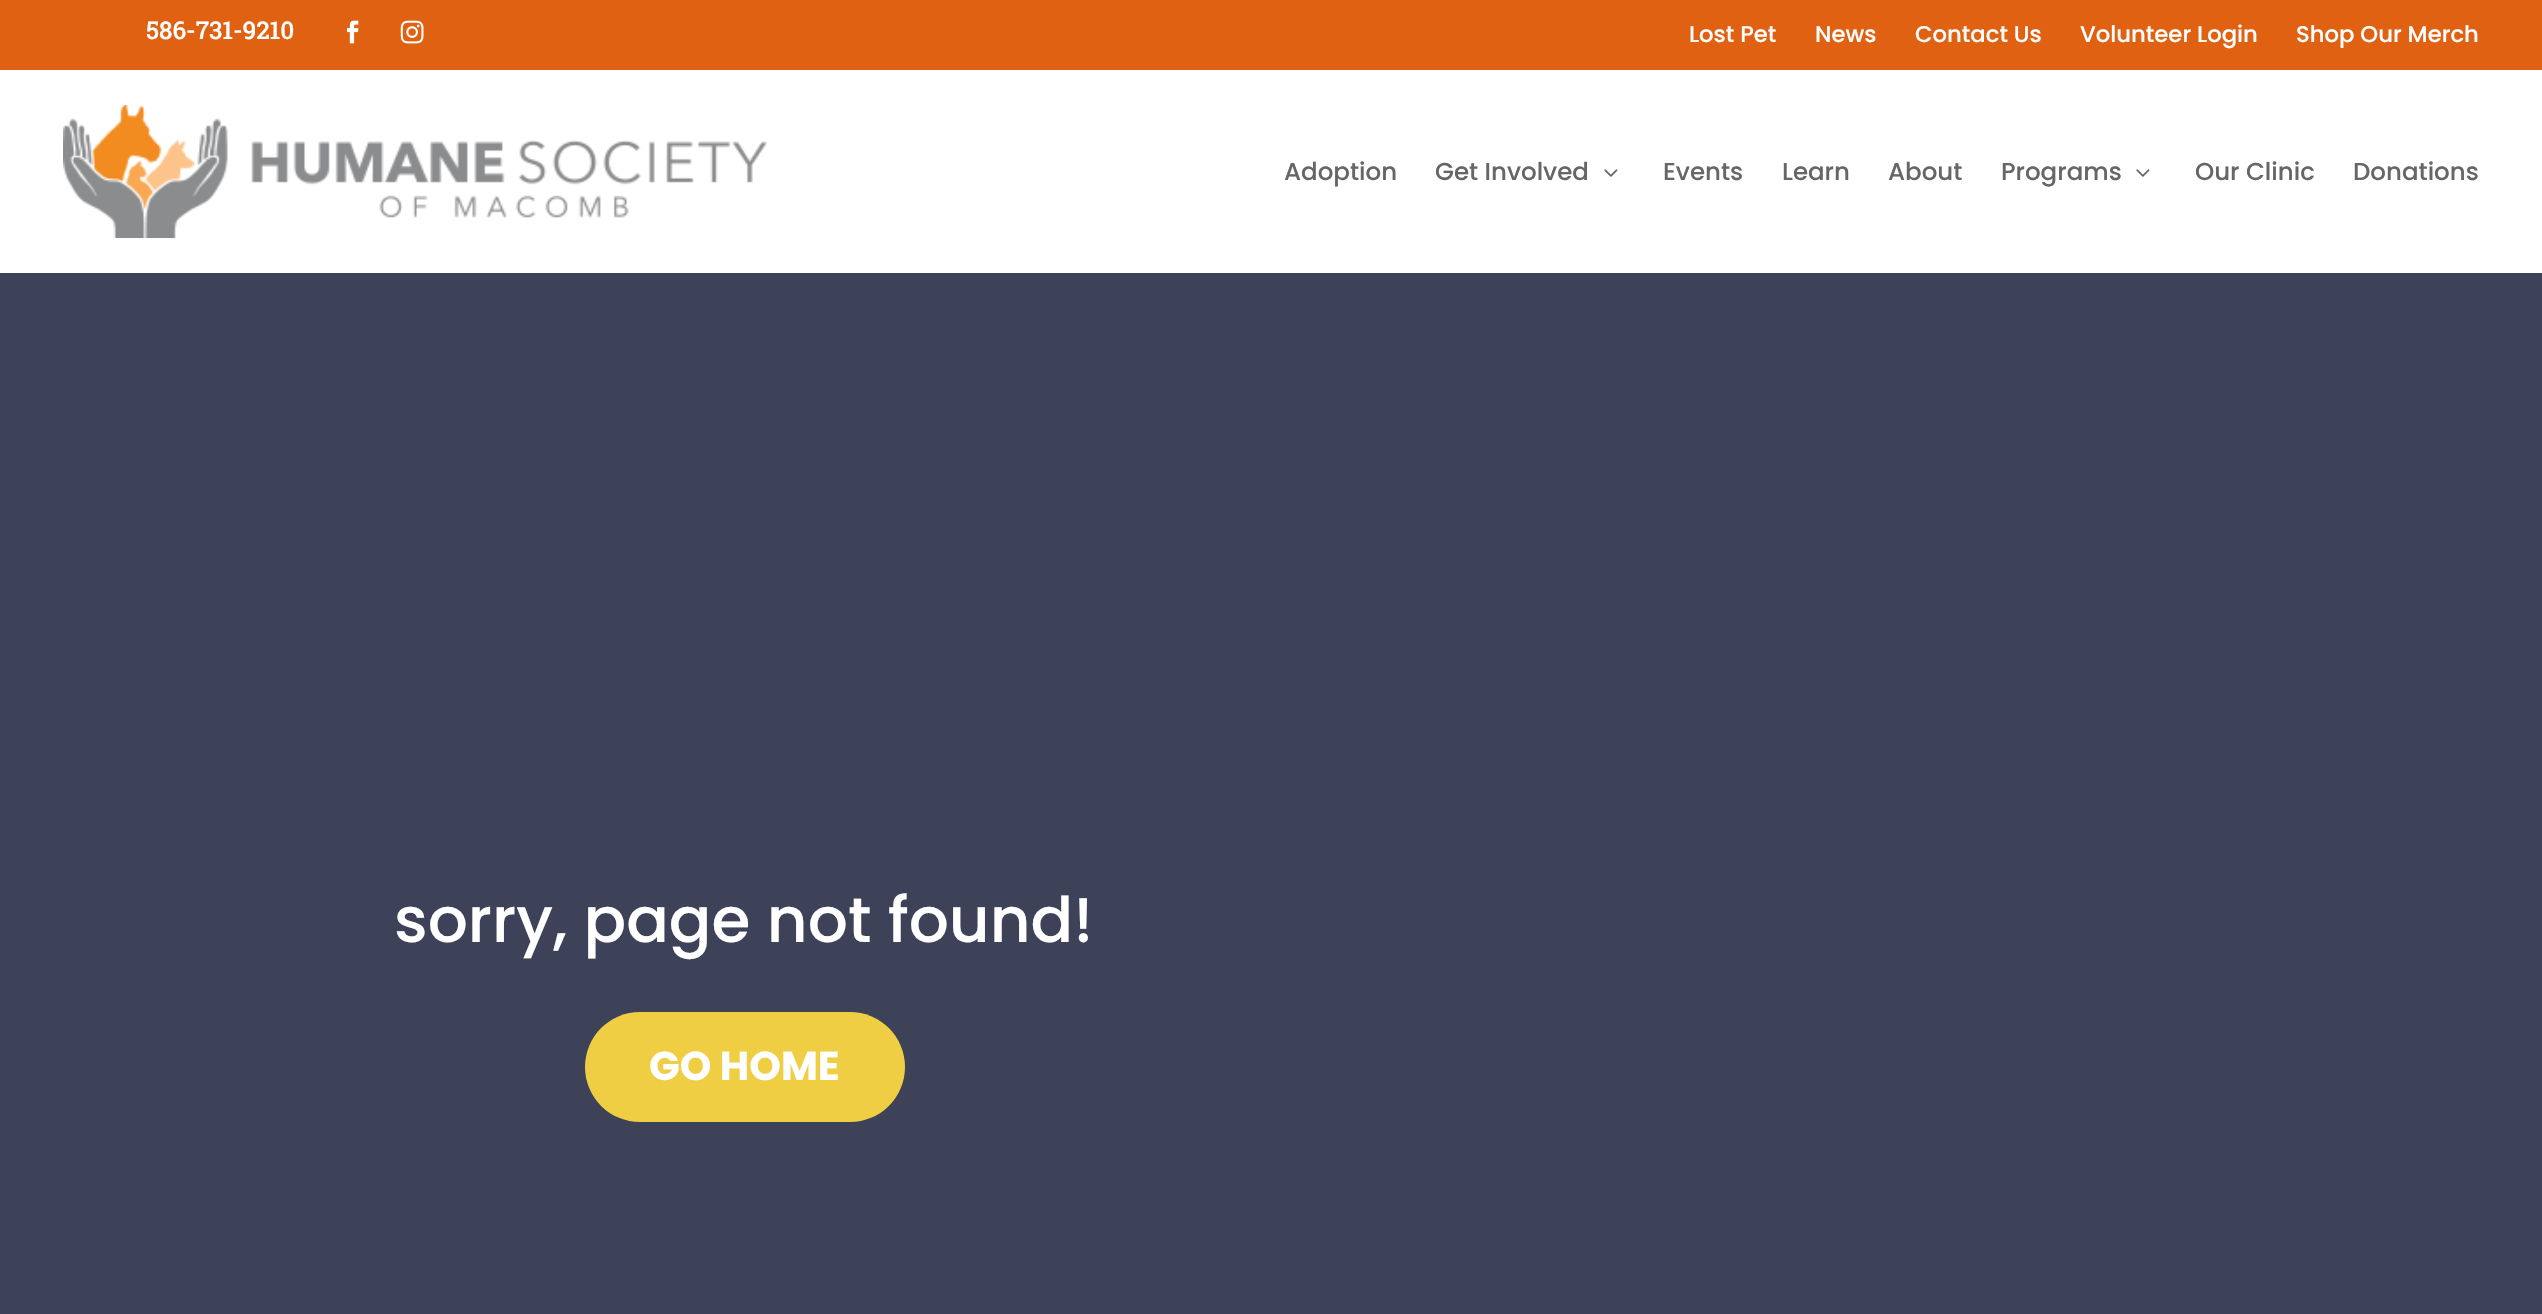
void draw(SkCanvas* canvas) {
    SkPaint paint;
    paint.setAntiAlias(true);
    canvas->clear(0xFFFFFFFF);
    paint.setColor(0xFFE06112);
    canvas->drawRect(SkRect::MakeXYWH(0, 0, 2542, 70), paint);
    SkFont font1(fontMgr->matchFamilyStyle("Roboto Slab", SkFontStyle(500, SkFontStyle::kNormal_Width, SkFontStyle::kUpright_Slant)), 24.5f);
    font1.setSubpixel(true);
    paint.setColor(0xFFFFFFFF);
    canvas->drawString("586-731-9210", 146, 39, font1, paint);
    canvas->drawImageRect(SkImages::DeferredFromEncodedData(SkData::MakeFromFileName("img1.png")), SkRect::MakeXYWH(346, 20, 13, 24), SkSamplingOptions());
    canvas->drawImageRect(SkImages::DeferredFromEncodedData(SkData::MakeFromFileName("img2.png")), SkRect::MakeXYWH(400, 20, 24, 24), SkSamplingOptions());
    SkFont font2(fontMgr->matchFamilyStyle("Poppins", SkFontStyle(500, SkFontStyle::kNormal_Width, SkFontStyle::kUpright_Slant)), 22.75f);
    font2.setSubpixel(true);
    canvas->drawString("Lost Pet", 1689, 42, font2, paint);
    canvas->drawString("News", 1815, 42, font2, paint);
    canvas->drawString("Contact Us", 1915, 42, font2, paint);
    canvas->drawString("Volunteer Login", 2080, 42, font2, paint);
    canvas->drawString("Shop Our Merch", 2296, 42, font2, paint);
    canvas->drawImageRect(SkImages::DeferredFromEncodedData(SkData::MakeFromFileName("img3.png")), SkRect::MakeXYWH(63, 105, 704, 133), SkSamplingOptions());
    SkFont font3(fontMgr->matchFamilyStyle("Poppins", SkFontStyle(500, SkFontStyle::kNormal_Width, SkFontStyle::kUpright_Slant)), 24.5f);
    font3.setSubpixel(true);
    paint.setColor(0xFF666666);
    canvas->drawString("Adoption", 1284, 180, font3, paint);
    canvas->drawString("Get Involved", 1435, 180, font3, paint);
    canvas->drawImageRect(SkImages::DeferredFromEncodedData(SkData::MakeFromFileName("img4.png")), SkRect::MakeXYWH(1604, 169, 14, 8), SkSamplingOptions());
    canvas->drawString("Events", 1663, 180, font3, paint);
    canvas->drawString("Learn", 1782, 180, font3, paint);
    canvas->drawString("About", 1888, 180, font3, paint);
    canvas->drawString("Programs", 2001, 180, font3, paint);
    canvas->drawImageRect(SkImages::DeferredFromEncodedData(SkData::MakeFromFileName("img4.png")), SkRect::MakeXYWH(2136, 169, 14, 8), SkSamplingOptions());
    canvas->drawString("Our Clinic", 2195, 180, font3, paint);
    canvas->drawString("Donations", 2353, 180, font3, paint);
    paint.setColor(0xFF3D4258);
    canvas->drawRect(SkRect::MakeXYWH(0, 273, 2542, 1041), paint);
    SkFont font4(fontMgr->matchFamilyStyle("Poppins", SkFontStyle(500, SkFontStyle::kNormal_Width, SkFontStyle::kUpright_Slant)), 63);
    font4.setSubpixel(true);
    paint.setColor(0xFFFFFFFF);
    canvas->drawString("sorry, page not found!", 394, 942, font4, paint);
    paint.setColor(0xFFEFCE43);
    canvas->drawRoundRect(SkRect::MakeXYWH(585, 1012, 320, 110), 55, 55, paint);
    SkFont font5(fontMgr->matchFamilyStyle("Poppins", SkFontStyle::Bold()), 40.25f);
    font5.setSubpixel(true);
    paint.setColor(0xFFFFFFFF);
    canvas->drawString("GO HOME", 649, 1080, font5, paint);
}
